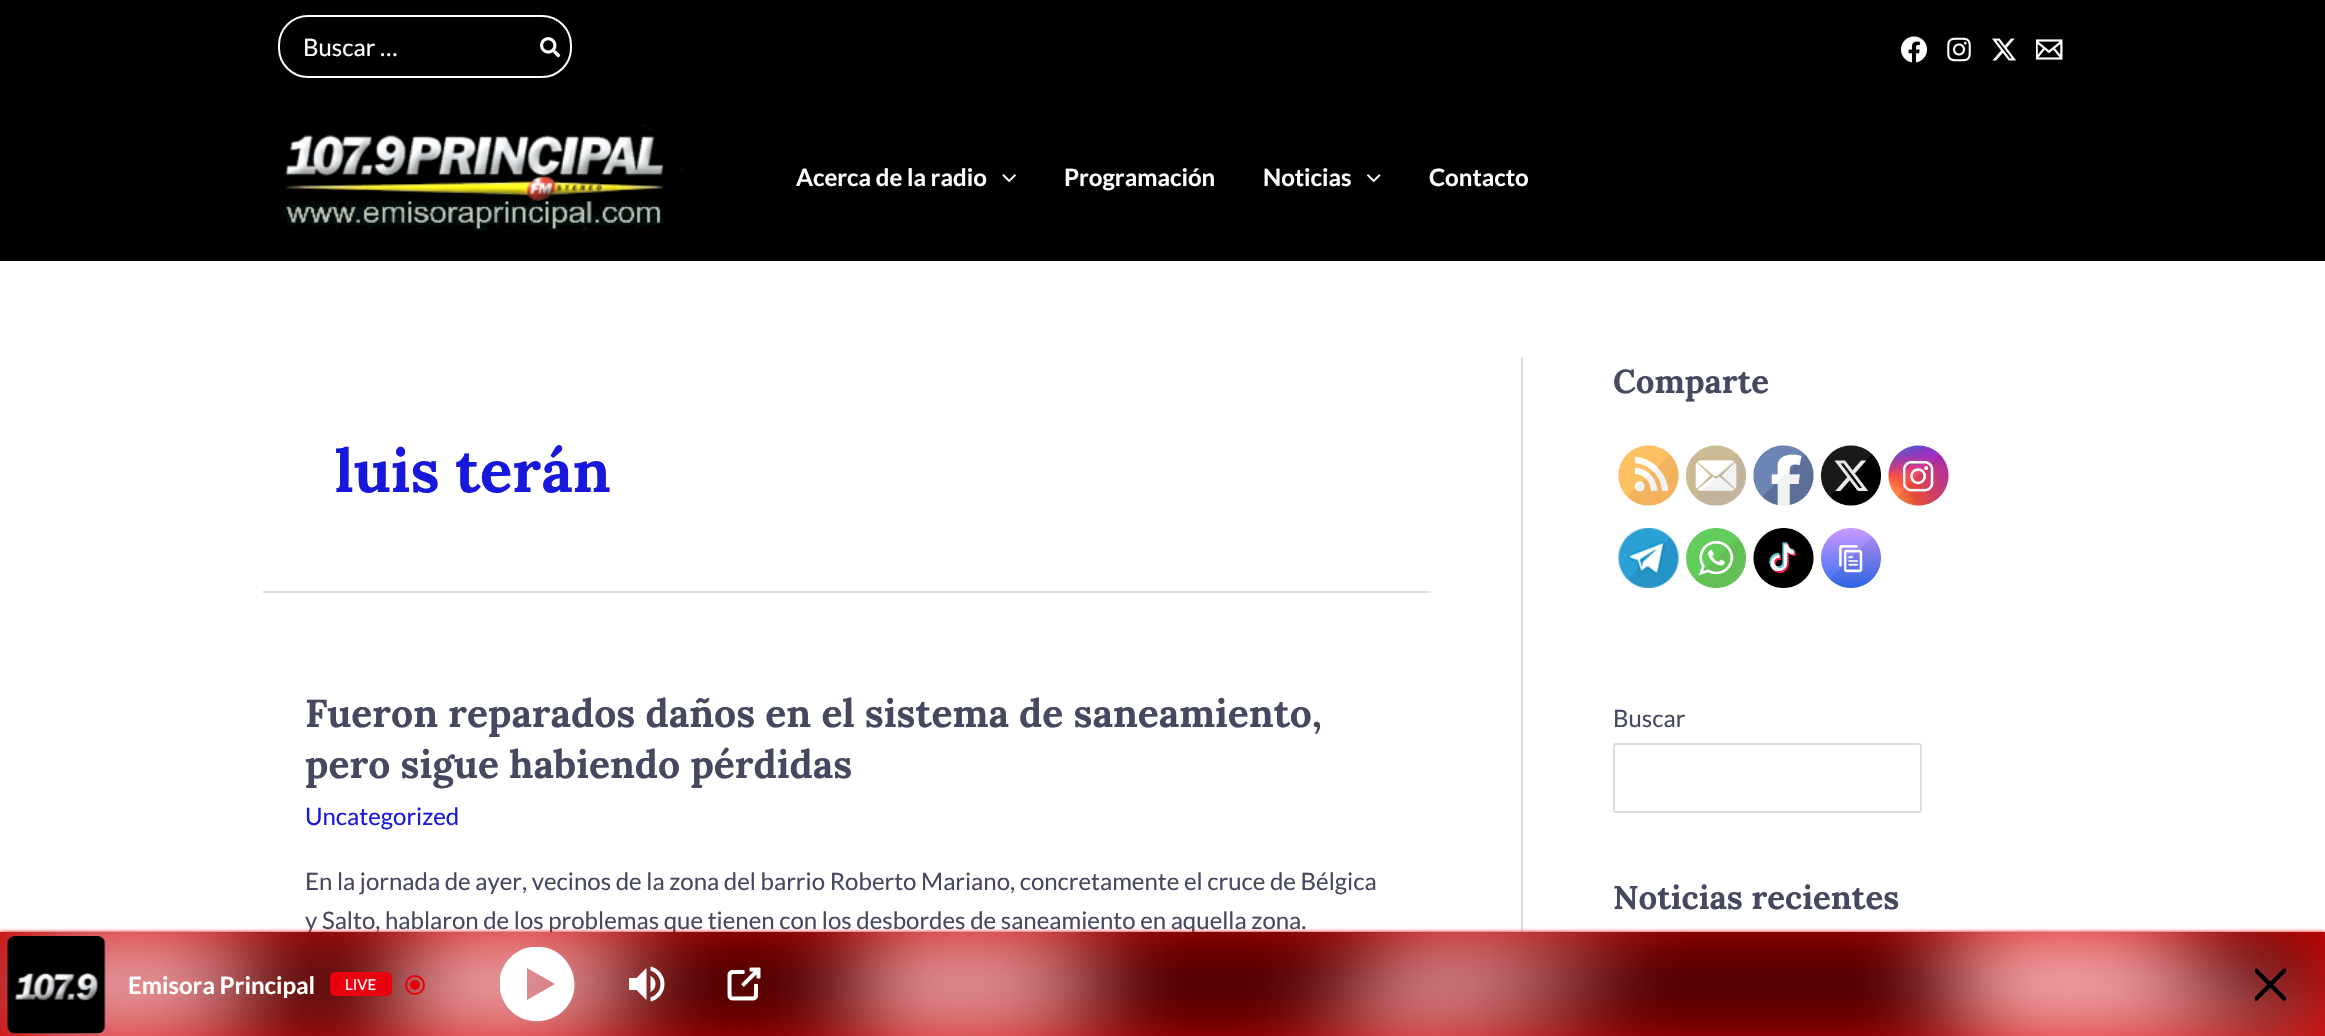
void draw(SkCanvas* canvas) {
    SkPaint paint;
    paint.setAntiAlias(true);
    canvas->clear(0xFFFFFFFF);
    paint.setColor(0xFF000000);
    canvas->drawRect(SkRect::MakeXYWH(0, 0, 2325, 261), paint);
    paint.setStyle(SkPaint::kStroke_Style);
    paint.setStrokeWidth(2);
    paint.setColor(0xFFFFFFFF);
    canvas->drawRoundRect(SkRect::MakeXYWH(279, 16, 292, 61), 29, 29, paint);
    SkFont font1(fontMgr->matchFamilyStyle("Lato", SkFontStyle::Normal()), 24);
    font1.setSubpixel(true);
    paint.setStyle(SkPaint::kFill_Style);
    canvas->drawString("Buscar …", 303, 56, font1, paint);
    canvas->drawImageRect(SkImages::DeferredFromEncodedData(SkData::MakeFromFileName("img1.png")), SkRect::MakeXYWH(540, 37, 21, 21), SkSamplingOptions());
    canvas->drawImageRect(SkImages::DeferredFromEncodedData(SkData::MakeFromFileName("img2.png")), SkRect::MakeXYWH(1901, 36, 27, 27), SkSamplingOptions());
    canvas->drawImageRect(SkImages::DeferredFromEncodedData(SkData::MakeFromFileName("img3.png")), SkRect::MakeXYWH(1947, 37, 24, 25), SkSamplingOptions());
    canvas->drawImageRect(SkImages::DeferredFromEncodedData(SkData::MakeFromFileName("img4.png")), SkRect::MakeXYWH(1992, 38, 24, 23), SkSamplingOptions());
    canvas->drawImageRect(SkImages::DeferredFromEncodedData(SkData::MakeFromFileName("img5.png")), SkRect::MakeXYWH(2036, 39, 27, 21), SkSamplingOptions());
    canvas->drawImageRect(SkImages::DeferredFromEncodedData(SkData::MakeFromFileName("img6.png")), SkRect::MakeXYWH(277, 124, 406, 107), SkSamplingOptions());
    SkFont font2(fontMgr->matchFamilyStyle("Lato", SkFontStyle::Bold()), 24);
    font2.setSubpixel(true);
    canvas->drawString("Acerca de la radio", 796, 186, font2, paint);
    canvas->drawImageRect(SkImages::DeferredFromEncodedData(SkData::MakeFromFileName("img7.png")), SkRect::MakeXYWH(1002, 174, 14, 9), SkSamplingOptions());
    canvas->drawString("Programación", 1064, 186, font2, paint);
    canvas->drawString("Noticias", 1263, 186, font2, paint);
    canvas->drawImageRect(SkImages::DeferredFromEncodedData(SkData::MakeFromFileName("img8.png")), SkRect::MakeXYWH(1367, 174, 14, 9), SkSamplingOptions());
    canvas->drawString("Contacto", 1429, 186, font2, paint);
    paint.setColor(0xFFDDDDDD);
    canvas->drawRect(SkRect::MakeXYWH(1521, 357, 2, 575), paint);
    canvas->drawRect(SkRect::MakeXYWH(263, 591, 1168, 2), paint);
    SkFont font3(fontMgr->matchFamilyStyle("Lora", SkFontStyle::Bold()), 60);
    font3.setSubpixel(true);
    paint.setColor(0xFF1818DC);
    canvas->drawString("luis terán", 335, 492, font3, paint);
    SkFont font4(fontMgr->matchFamilyStyle("Lora", SkFontStyle::Bold()), 39);
    font4.setSubpixel(true);
    paint.setColor(0xFF45485F);
    canvas->drawString("Fueron reparados daños en el sistema de saneamiento,", 305, 727, font4, paint);
    canvas->drawString("pero sigue habiendo pérdidas", 305, 778, font4, paint);
    paint.setColor(0xFF1818DC);
    canvas->drawString("Uncategorized", 305, 825, font1, paint);
    paint.setColor(0xFF45485F);
    canvas->drawString("En la jornada de ayer, vecinos de la zona del barrio Roberto Mariano, concretamente el cruce de Bélgica", 305, 890, font1, paint);
    canvas->drawString("y Salto, hablaron de los problemas que tienen con los desbordes de saneamiento en aquella zona.", 305, 929, font1, paint);
    SkFont font5(fontMgr->matchFamilyStyle("Lora", SkFontStyle::Bold()), 33);
    font5.setSubpixel(true);
    canvas->drawString("Comparte", 1613, 393, font5, paint);
    canvas->drawImageRect(SkImages::DeferredFromEncodedData(SkData::MakeFromFileName("img9.png")), SkRect::MakeXYWH(1618, 445, 61, 61), SkSamplingOptions());
    canvas->drawImageRect(SkImages::DeferredFromEncodedData(SkData::MakeFromFileName("img10.png")), SkRect::MakeXYWH(1686, 445, 60, 61), SkSamplingOptions());
    canvas->drawImageRect(SkImages::DeferredFromEncodedData(SkData::MakeFromFileName("img11.png")), SkRect::MakeXYWH(1753, 445, 61, 61), SkSamplingOptions());
    canvas->drawImageRect(SkImages::DeferredFromEncodedData(SkData::MakeFromFileName("img12.png")), SkRect::MakeXYWH(1821, 445, 60, 61), SkSamplingOptions());
    canvas->drawImageRect(SkImages::DeferredFromEncodedData(SkData::MakeFromFileName("img13.png")), SkRect::MakeXYWH(1888, 445, 61, 61), SkSamplingOptions());
    canvas->drawImageRect(SkImages::DeferredFromEncodedData(SkData::MakeFromFileName("img14.png")), SkRect::MakeXYWH(1618, 528, 61, 60), SkSamplingOptions());
    canvas->drawImageRect(SkImages::DeferredFromEncodedData(SkData::MakeFromFileName("img15.png")), SkRect::MakeXYWH(1686, 528, 60, 60), SkSamplingOptions());
    canvas->drawImageRect(SkImages::DeferredFromEncodedData(SkData::MakeFromFileName("img16.png")), SkRect::MakeXYWH(1753, 528, 61, 60), SkSamplingOptions());
    canvas->drawImageRect(SkImages::DeferredFromEncodedData(SkData::MakeFromFileName("img17.png")), SkRect::MakeXYWH(1821, 528, 60, 60), SkSamplingOptions());
    canvas->drawString("Buscar", 1613, 727, font1, paint);
    paint.setStyle(SkPaint::kStroke_Style);
    paint.setColor(0xFFDDDDDD);
    canvas->drawRoundRect(SkRect::MakeXYWH(1614, 744, 307, 68), 2, 2, paint);
    paint.setStyle(SkPaint::kFill_Style);
    paint.setColor(0xFF45485F);
    canvas->drawString("Noticias recientes", 1613, 909, font5, paint);
    paint.setColor(0xFFE00000);
    paint.setMaskFilter(SkMaskFilter::MakeBlur(kNormal_SkBlurStyle, 2));
    canvas->drawRect(SkRect::MakeXYWH(0, 932, 2325, 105), paint);
    paint.setMaskFilter(nullptr);
    canvas->drawRect(SkRect::MakeXYWH(0, 932, 2325, 104), paint);
    canvas->drawImageRect(SkImages::DeferredFromEncodedData(SkData::MakeFromFileName("img18.png")), SkRect::MakeXYWH(0, 932, 2325, 104), SkSamplingOptions());
    canvas->drawImageRect(SkImages::DeferredFromEncodedData(SkData::MakeFromFileName("img19.png")), SkRect::MakeXYWH(7, 936, 99, 98), SkSamplingOptions());
    paint.setColor(0xFFFFFFFF);
    canvas->drawString("Emisora Principal", 128, 994, font2, paint);
    paint.setColor(0xFFE8000E);
    canvas->drawRoundRect(SkRect::MakeXYWH(330, 972, 62, 24), 5, 5, paint);
    SkFont font6(fontMgr->matchFamilyStyle("Lato", SkFontStyle::Normal()), 15);
    font6.setSubpixel(true);
    paint.setColor(0xFFFFFFFF);
    canvas->drawString("LIVE", 345, 990, font6, paint);
    paint.setColor(0xFFE8000E);
    canvas->drawCircle(415, 985, 5, paint);
    paint.setStyle(SkPaint::kStroke_Style);
    canvas->drawCircle(415, 985, 9, paint);
    canvas->save();
    canvas->clipRect(SkRect::MakeXYWH(500, 947, 75, 75));
    paint.setStyle(SkPaint::kFill_Style);
    paint.setColor(0xFFFFFFFF);
    canvas->drawPath(SkPathBuilder().moveTo(533, 947).cubicTo(525, 947, 517, 951, 511, 957).cubicTo(485, 982, 506, 1025, 541, 1021).cubicTo(549, 1020, 556, 1017, 562, 1012).cubicTo(589, 988, 569, 943, 533, 947).close().moveTo(541, 976).lineTo(555, 984).lineTo(527, 1000).lineTo(527, 968).close().detach(), paint);
    canvas->restore();
    canvas->drawImageRect(SkImages::DeferredFromEncodedData(SkData::MakeFromFileName("img20.png")), SkRect::MakeXYWH(629, 966, 36, 36), SkSamplingOptions());
    canvas->drawImageRect(SkImages::DeferredFromEncodedData(SkData::MakeFromFileName("img21.png")), SkRect::MakeXYWH(727, 967, 34, 34), SkSamplingOptions());
    canvas->drawImageRect(SkImages::DeferredFromEncodedData(SkData::MakeFromFileName("img22.png")), SkRect::MakeXYWH(2255, 968, 31, 33), SkSamplingOptions());
}
